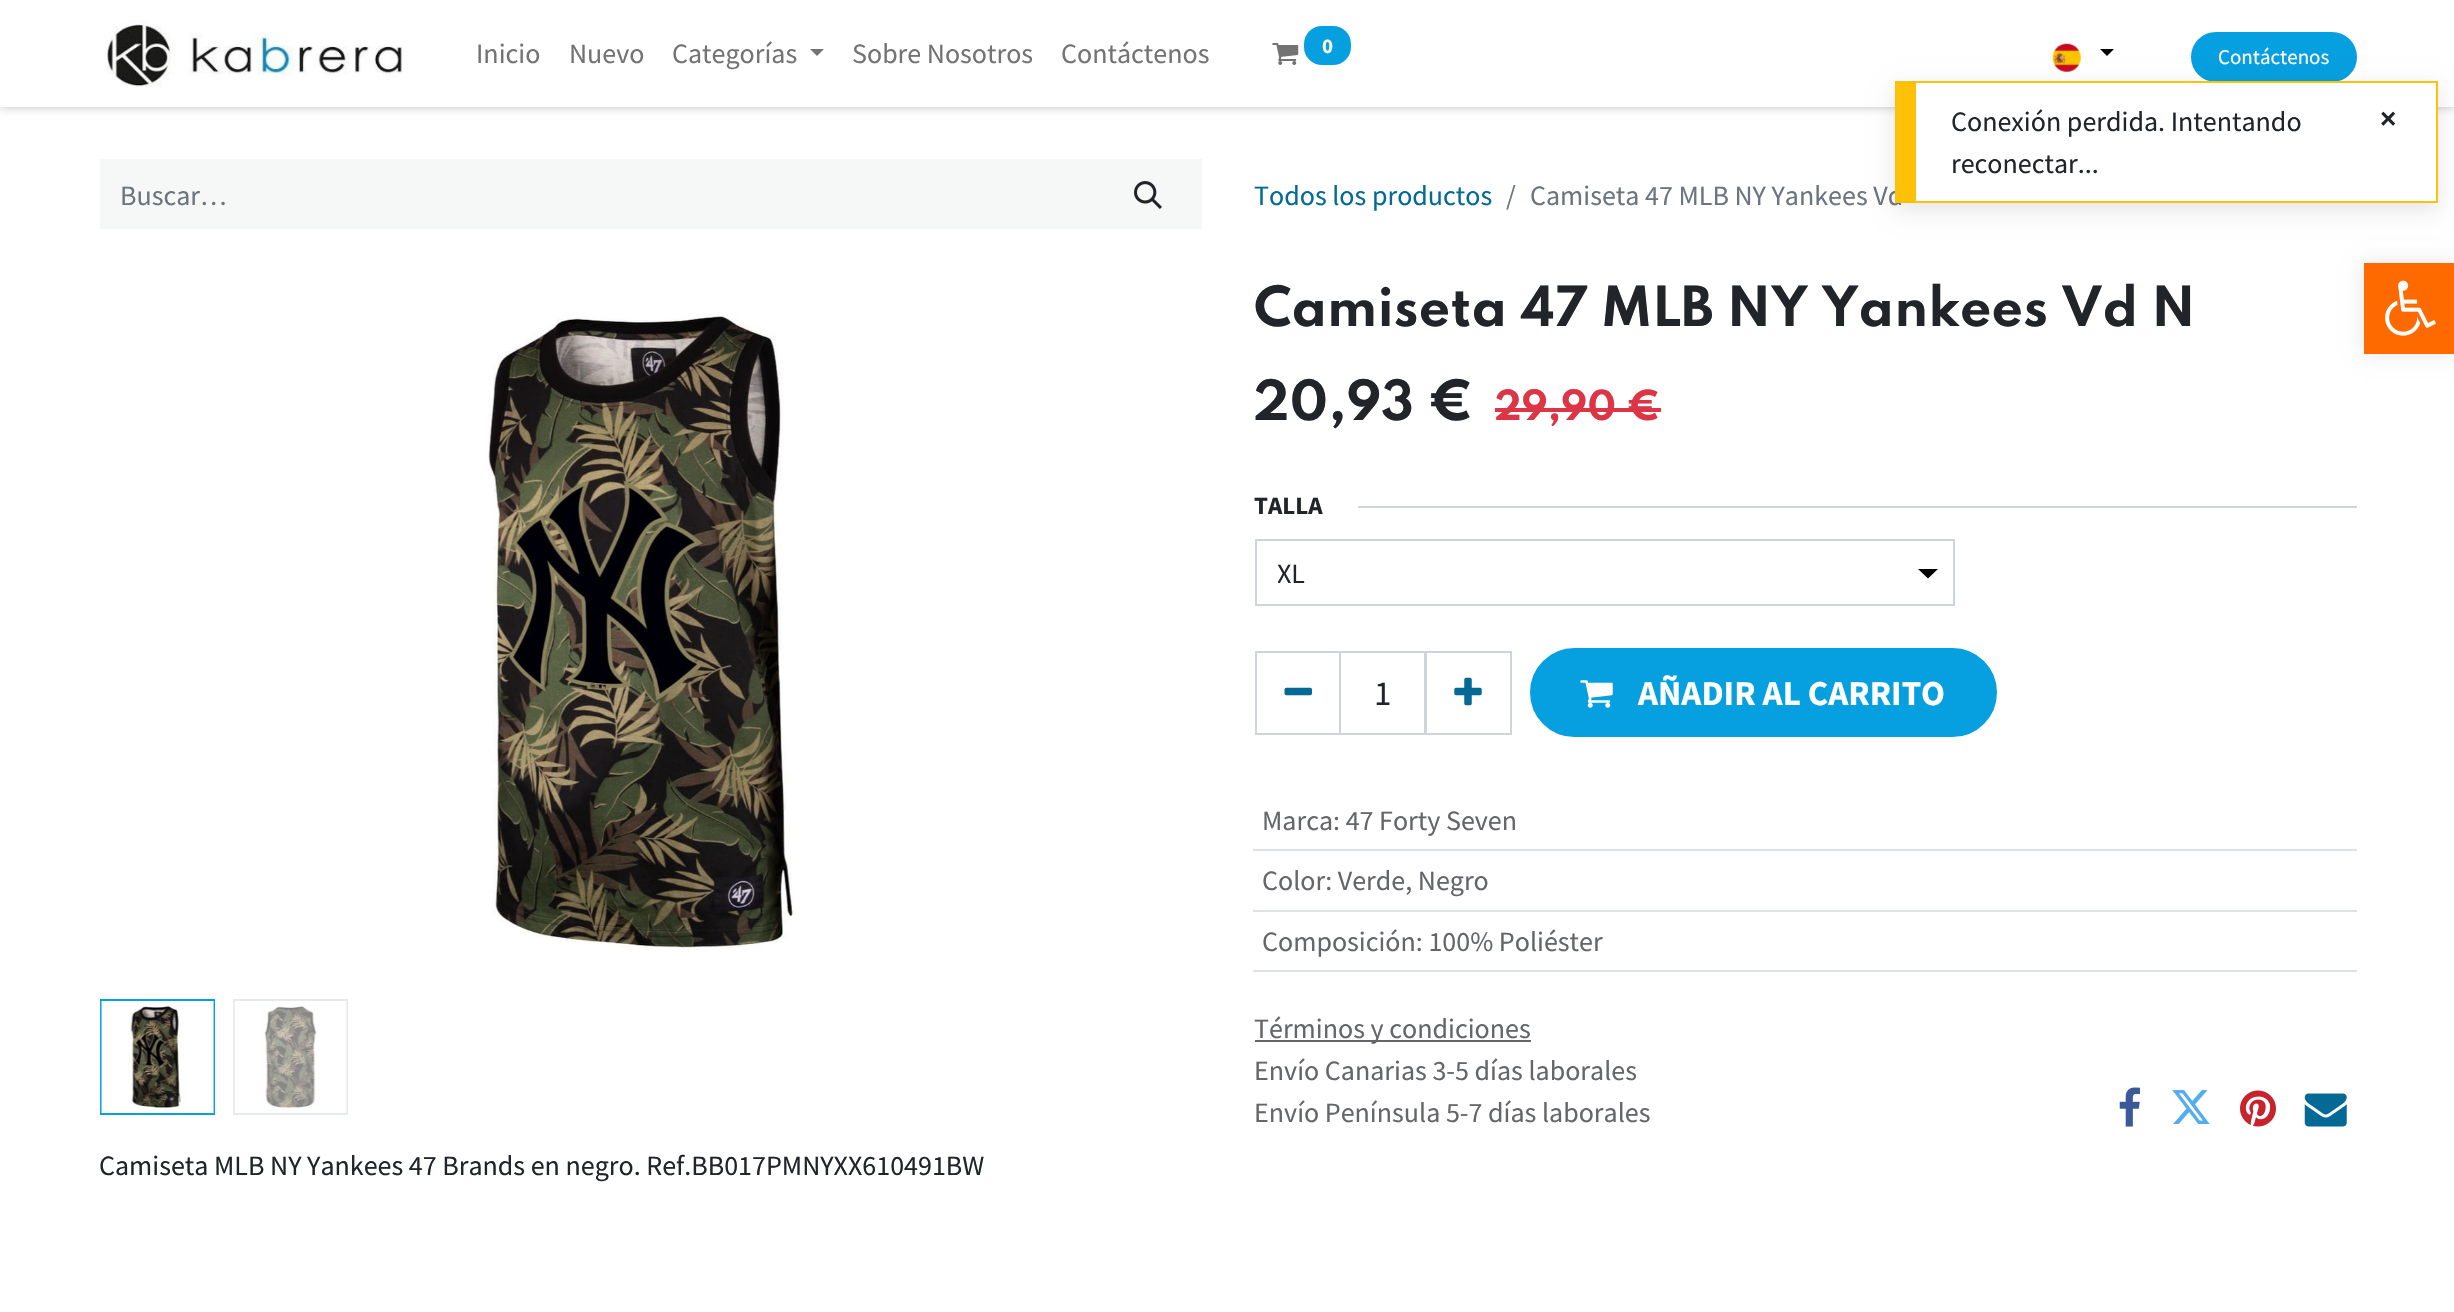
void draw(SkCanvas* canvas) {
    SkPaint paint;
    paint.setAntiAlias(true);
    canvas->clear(0xFFFFFFFF);
    paint.setColor(0x40000000);
    paint.setMaskFilter(SkMaskFilter::MakeBlur(kNormal_SkBlurStyle, 4.5f));
    canvas->drawRect(SkRect::MakeXYWH(0, 0, 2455, 107), paint);
    paint.setMaskFilter(nullptr);
    paint.setColor(0xFFFFFFFF);
    canvas->drawRect(SkRect::MakeXYWH(0, 0, 2454, 107), paint);
    canvas->drawImageRect(SkImages::DeferredFromEncodedData(SkData::MakeFromFileName("img1.png")), SkRect::MakeXYWH(107, 20, 296, 67), SkSamplingOptions());
    SkFont font1(fontMgr->matchFamilyStyle("Source Sans Pro", SkFontStyle::Normal()), 28);
    font1.setSubpixel(true);
    paint.setColor(0xFF737373);
    canvas->drawString("Inicio", 476, 63, font1, paint);
    canvas->drawString("Nuevo", 569, 63, font1, paint);
    canvas->drawString("Categorías", 672, 63, font1, paint);
    canvas->drawPath(SkPathBuilder().moveTo(810, 49).lineTo(824, 49).lineTo(817, 56).close().detach(), paint);
    canvas->drawString("Sobre Nosotros", 852, 63, font1, paint);
    canvas->drawString("Contáctenos", 1061, 63, font1, paint);
    canvas->drawImageRect(SkImages::DeferredFromEncodedData(SkData::MakeFromFileName("img2.png")), SkRect::MakeXYWH(1272, 43, 27, 22), SkSamplingOptions());
    paint.setColor(0xFF069FE0);
    canvas->drawRoundRect(SkRect::MakeXYWH(1304, 26, 47, 39), 18, 18, paint);
    SkFont font2(fontMgr->matchFamilyStyle("Source Sans Pro", SkFontStyle::Bold()), 21);
    font2.setSubpixel(true);
    paint.setColor(0xFFFFFFFF);
    canvas->drawString("0", 1322, 53, font2, paint);
    canvas->drawImageRect(SkImages::DeferredFromEncodedData(SkData::MakeFromFileName("img3.png")), SkRect::MakeXYWH(2052, 43, 29, 29), SkSamplingOptions());
    paint.setColor(0xFF000000);
    canvas->drawPath(SkPathBuilder().moveTo(2100, 49).lineTo(2114, 49).lineTo(2107, 56).close().detach(), paint);
    paint.setColor(0xFF069FE0);
    canvas->drawRoundRect(SkRect::MakeXYWH(2192, 33, 164, 48), 24, 24, paint);
    paint.setStyle(SkPaint::kStroke_Style);
    paint.setStrokeWidth(2);
    canvas->drawRoundRect(SkRect::MakeXYWH(2192, 33, 164, 48), 24, 24, paint);
    SkFont font3(fontMgr->matchFamilyStyle("Source Sans Pro", SkFontStyle::Normal()), 21);
    font3.setSubpixel(true);
    paint.setStyle(SkPaint::kFill_Style);
    paint.setColor(0xFFFFFFFF);
    canvas->drawString("Contáctenos", 2218, 64, font3, paint);
    paint.setColor(0xFFF6F8F8);
    canvas->drawRect(SkRect::MakeXYWH(100, 159, 1102, 70), paint);
    paint.setColor(0xFF6C757D);
    canvas->drawString("Buscar…", 120, 205, font1, paint);
    canvas->drawImageRect(SkImages::DeferredFromEncodedData(SkData::MakeFromFileName("img4.png")), SkRect::MakeXYWH(1134, 181, 28, 28), SkSamplingOptions());
    paint.setColor(0xFF046A95);
    canvas->drawString("Todos los productos", 1254, 205, font1, paint);
    paint.setColor(0xFF6C757D);
    canvas->drawString("/", 1506, 205, font1, paint);
    canvas->drawString("Camiseta 47 MLB NY Yankees Vd", 1530, 205, font1, paint);
    SkFont font4(fontMgr->matchFamilyStyle("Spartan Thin", SkFontStyle::Bold()), 49);
    font4.setSubpixel(true);
    paint.setColor(0xFF212529);
    canvas->drawString("Camiseta 47 MLB NY Yankees Vd N", 1254, 326, font4, paint);
    canvas->drawString("20,93 €", 1254, 420, font4, paint);
    SkFont font5(fontMgr->matchFamilyStyle("Spartan Thin", SkFontStyle::Bold()), 36.75f);
    font5.setSubpixel(true);
    paint.setColor(0xFFDC3545);
    canvas->drawString("29,90 €", 1495, 420, font5, paint);
    canvas->drawRect(SkRect::MakeXYWH(1495, 408, 166, 4), paint);
    SkFont font6(fontMgr->matchFamilyStyle("Source Sans Pro", SkFontStyle::Bold()), 25);
    font6.setSubpixel(true);
    paint.setColor(0xFF212529);
    canvas->drawString("TALLA", 1254, 514, font6, paint);
    paint.setColor(0xFFCED4DA);
    canvas->drawRect(SkRect::MakeXYWH(1358, 506, 999, 2), paint);
    paint.setColor(0xFF000000);
    canvas->drawPath(SkPathBuilder().moveTo(1918, 569).lineTo(1938, 569).lineTo(1928, 578.5f).close().detach(), paint);
    paint.setStyle(SkPaint::kStroke_Style);
    paint.setColor(0xFFCED4DA);
    canvas->drawRect(SkRect::MakeXYWH(1256, 540, 698, 65), paint);
    canvas->save();
    canvas->clipRect(SkRect::MakeXYWH(1278, 551, 612, 42));
    paint.setStyle(SkPaint::kFill_Style);
    paint.setColor(0xFF212529);
    canvas->drawString("XL", 1277, 583, font1, paint);
    canvas->restore();
    paint.setStyle(SkPaint::kStroke_Style);
    paint.setColor(0xFFCED4DA);
    canvas->drawRect(SkRect::MakeXYWH(1340, 652, 85, 82), paint);
    canvas->drawRect(SkRect::MakeXYWH(1256, 652, 84, 82), paint);
    canvas->drawImageRect(SkImages::DeferredFromEncodedData(SkData::MakeFromFileName("img5.png")), SkRect::MakeXYWH(1284, 687, 28, 9), SkSamplingOptions());
    SkFont font7(fontMgr->matchFamilyStyle("Source Sans Pro", SkFontStyle::Normal()), 35);
    font7.setSubpixel(true);
    paint.setStyle(SkPaint::kFill_Style);
    paint.setColor(0xFF212529);
    canvas->drawString("1", 1374, 705, font7, paint);
    paint.setStyle(SkPaint::kStroke_Style);
    paint.setColor(0xFFCED4DA);
    canvas->drawRect(SkRect::MakeXYWH(1426, 652, 85, 82), paint);
    canvas->drawImageRect(SkImages::DeferredFromEncodedData(SkData::MakeFromFileName("img6.png")), SkRect::MakeXYWH(1454, 677, 28, 29), SkSamplingOptions());
    paint.setStyle(SkPaint::kFill_Style);
    paint.setColor(0xFF069FE0);
    canvas->drawRoundRect(SkRect::MakeXYWH(1531, 649, 465, 87), 43.5f, 43.5f, paint);
    paint.setStyle(SkPaint::kStroke_Style);
    canvas->drawRoundRect(SkRect::MakeXYWH(1531, 649, 465, 87), 43.5f, 43.5f, paint);
    canvas->drawImageRect(SkImages::DeferredFromEncodedData(SkData::MakeFromFileName("img7.png")), SkRect::MakeXYWH(1580, 680, 33, 28), SkSamplingOptions());
    SkFont font8(fontMgr->matchFamilyStyle("Source Sans Pro", SkFontStyle::Bold()), 35);
    font8.setSubpixel(true);
    paint.setStyle(SkPaint::kFill_Style);
    paint.setColor(0xFFFFFFFF);
    canvas->drawString("AÑADIR AL CARRITO", 1638, 705, font8, paint);
    paint.setColor(0xFFDEE2E6);
    canvas->drawRect(SkRect::MakeXYWH(1253, 849, 1104, 2), paint);
    paint.setColor(0xFF646669);
    canvas->drawString("Marca: 47 Forty Seven", 1262, 830, font1, paint);
    paint.setColor(0xFFDEE2E6);
    canvas->drawRect(SkRect::MakeXYWH(1253, 910, 1104, 2), paint);
    paint.setColor(0xFF646669);
    canvas->drawString("Color: Verde, Negro", 1262, 890, font1, paint);
    paint.setColor(0xFFDEE2E6);
    canvas->drawRect(SkRect::MakeXYWH(1253, 970, 1104, 2), paint);
    paint.setColor(0xFF646669);
    canvas->drawString("Composición: 100% Poliéster", 1262, 951, font1, paint);
    canvas->drawRect(SkRect::MakeXYWH(1255, 1040, 276, 2), paint);
    canvas->drawString("Términos y condiciones", 1254, 1038, font1, paint);
    canvas->drawString("Envío Canarias 3-5 días laborales", 1254, 1080, font1, paint);
    canvas->drawString("Envío Península 5-7 días laborales", 1254, 1122, font1, paint);
    canvas->drawImageRect(SkImages::DeferredFromEncodedData(SkData::MakeFromFileName("img8.png")), SkRect::MakeXYWH(2119, 1087, 21, 40), SkSamplingOptions());
    canvas->drawImageRect(SkImages::DeferredFromEncodedData(SkData::MakeFromFileName("img9.png")), SkRect::MakeXYWH(2172, 1090, 38, 34), SkSamplingOptions());
    canvas->drawImageRect(SkImages::DeferredFromEncodedData(SkData::MakeFromFileName("img10.png")), SkRect::MakeXYWH(2240, 1090, 36, 37), SkSamplingOptions());
    canvas->drawImageRect(SkImages::DeferredFromEncodedData(SkData::MakeFromFileName("img11.png")), SkRect::MakeXYWH(2304, 1093, 43, 34), SkSamplingOptions());
    canvas->drawImageRect(SkImages::DeferredFromEncodedData(SkData::MakeFromFileName("img12.png")), SkRect::MakeXYWH(487, 314, 307, 635), SkSamplingOptions());
    paint.setStyle(SkPaint::kStroke_Style);
    paint.setColor(0xFF069FE0);
    canvas->drawRect(SkRect::MakeXYWH(101, 1000, 113, 114), paint);
    canvas->drawImageRect(SkImages::DeferredFromEncodedData(SkData::MakeFromFileName("img13.png")), SkRect::MakeXYWH(100, 1001, 114, 112), SkSamplingOptions());
    paint.setColor(0xFFE7EAED);
    canvas->drawRect(SkRect::MakeXYWH(234, 1000, 113, 114), paint);
    canvas->drawImageRect(SkImages::DeferredFromEncodedData(SkData::MakeFromFileName("img14.png")), SkRect::MakeXYWH(234, 1001, 113, 112), SkSamplingOptions());
    paint.setStyle(SkPaint::kFill_Style);
    paint.setColor(0xFF212529);
    canvas->drawString("Camiseta MLB NY Yankees 47 Brands en negro. Ref.BB017PMNYXX610491BW", 99, 1175, font1, paint);
    paint.setColor(0x1A000000);
    paint.setMaskFilter(SkMaskFilter::MakeBlur(kNormal_SkBlurStyle, 10.5f));
    canvas->drawRect(SkRect::MakeXYWH(1895, 88, 543, 122), paint);
    paint.setMaskFilter(nullptr);
    paint.setColor(0xFFFFFFFF);
    canvas->drawRect(SkRect::MakeXYWH(1916, 83, 520, 118), paint);
    paint.setColor(0xFFFFC107);
    canvas->drawRect(SkRect::MakeXYWH(1916, 81, 522, 2), paint);
    canvas->drawRect(SkRect::MakeXYWH(2436, 81, 2, 122), paint);
    canvas->drawRect(SkRect::MakeXYWH(1916, 201, 522, 2), paint);
    canvas->drawRect(SkRect::MakeXYWH(1895, 81, 21, 122), paint);
    paint.setColor(0xFF212529);
    canvas->drawString("Conexión perdida. Intentando", 1951, 131, font1, paint);
    canvas->drawString("reconectar...", 1951, 173, font1, paint);
    SkFont font9(fontMgr->matchFamilyStyle("Liberation Sans", SkFontStyle::Bold()), 28);
    font9.setSubpixel(true);
    canvas->drawString("×", 2380, 128, font9, paint);
    paint.setColor(0x1A000000);
    paint.setMaskFilter(SkMaskFilter::MakeBlur(kNormal_SkBlurStyle, 9));
    canvas->drawRect(SkRect::MakeXYWH(2364, 263, 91, 91), paint);
    paint.setMaskFilter(nullptr);
    paint.setColor(0xFFFF6A00);
    canvas->drawRect(SkRect::MakeXYWH(2364, 263, 90, 91), paint);
    canvas->drawImageRect(SkImages::DeferredFromEncodedData(SkData::MakeFromFileName("img15.png")), SkRect::MakeXYWH(2385, 280, 51, 56), SkSamplingOptions());
}
